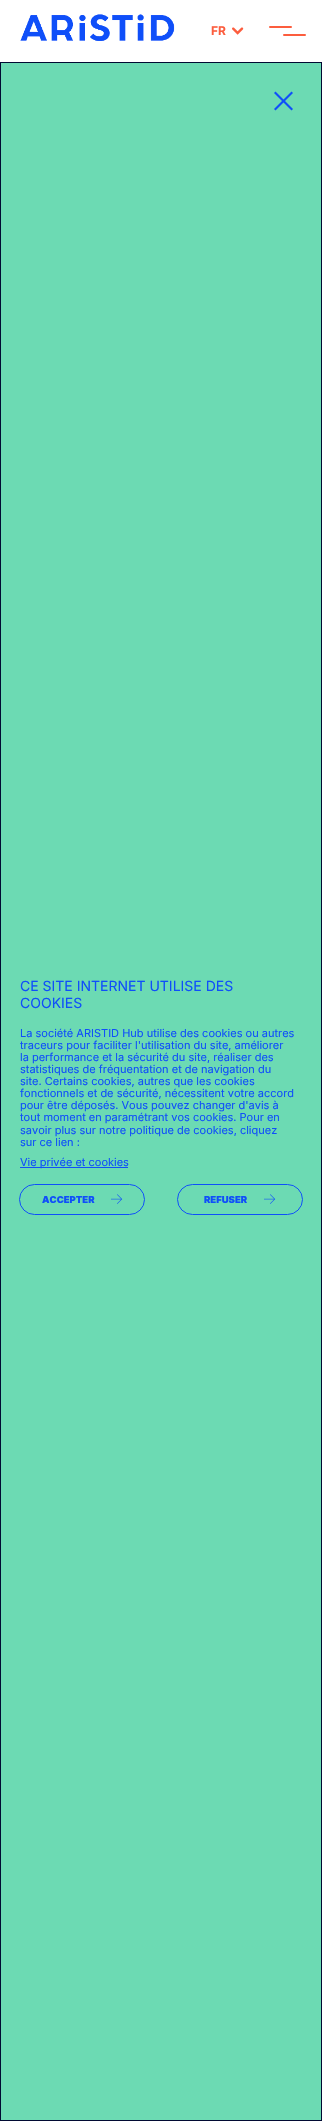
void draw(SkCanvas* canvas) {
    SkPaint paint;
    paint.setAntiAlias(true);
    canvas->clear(0xFFFFFFFF);
    canvas->drawImageRect(SkImages::DeferredFromEncodedData(SkData::MakeFromFileName("img1.png")), SkRect::MakeXYWH(20, 14, 155, 27), SkSamplingOptions());
    SkFont font1(fontMgr->matchFamilyStyle("Inter", SkFontStyle::Bold()), 12);
    font1.setSubpixel(true);
    paint.setColor(0xFFFC5D3E);
    canvas->drawString("FR", 211, 35, font1, paint);
    canvas->drawImageRect(SkImages::DeferredFromEncodedData(SkData::MakeFromFileName("img2.png")), SkRect::MakeXYWH(232, 27, 12, 8), SkSamplingOptions());
    canvas->drawRoundRect(SkRect::MakeXYWH(269, 26, 23, 2), 1, 1, paint);
    canvas->drawRoundRect(SkRect::MakeXYWH(283, 34, 23, 2), 1, 1, paint);
    paint.setColor(0xFF6CDAB3);
    canvas->drawRect(SkRect::MakeXYWH(0.5f, 62.5f, 321, 2058), paint);
    paint.setStyle(SkPaint::kStroke_Style);
    paint.setStrokeWidth(1);
    paint.setColor(0xFF010A33);
    canvas->drawRect(SkRect::MakeXYWH(0.5f, 62.5f, 321, 2058), paint);
    paint.setStyle(SkPaint::kFill_Style);
    paint.setColor(0xFF0F4FFA);
    canvas->drawPath(SkPathBuilder().moveTo(275.5f, 91.5f).lineTo(293, 109).lineTo(291.5f, 110.5f).lineTo(274, 93).close().detach(), paint);
    canvas->drawPath(SkPathBuilder().moveTo(274, 109).lineTo(291.5f, 91.5f).lineTo(293, 93).lineTo(275.5f, 110.5f).close().detach(), paint);
    SkFont font2(fontMgr->matchFamilyStyle("Inter", SkFontStyle::Normal()), 14);
    font2.setSubpixel(true);
    canvas->drawString("CE SITE INTERNET UTILISE DES", 20, 991, font2, paint);
    canvas->drawString("COOKIES", 20, 1008, font2, paint);
    SkFont font3(fontMgr->matchFamilyStyle("Inter", SkFontStyle::Normal()), 11);
    font3.setSubpixel(true);
    canvas->drawString("La société ARISTID Hub utilise des cookies ou autres", 20, 1037, font3, paint);
    canvas->drawString("traceurs pour faciliter l'utilisation du site, améliorer", 20, 1049, font3, paint);
    canvas->drawString("la performance et la sécurité du site, réaliser des", 20, 1061, font3, paint);
    canvas->drawString("statistiques de fréquentation et de navigation du", 20, 1073, font3, paint);
    canvas->drawString("site. Certains cookies, autres que les cookies", 20, 1085, font3, paint);
    canvas->drawString("fonctionnels et de sécurité, nécessitent votre accord", 20, 1097, font3, paint);
    canvas->drawString("pour être déposés. Vous pouvez changer d'avis à", 20, 1109, font3, paint);
    canvas->drawString("tout moment en paramétrant vos cookies. Pour en", 20, 1121, font3, paint);
    canvas->drawString("savoir plus sur notre politique de cookies, cliquez", 20, 1134, font3, paint);
    canvas->drawString("sur ce lien :", 20, 1146, font3, paint);
    canvas->drawRect(SkRect::MakeXYWH(20, 1167, 108, 1), paint);
    canvas->drawString("Vie privée et cookies", 20, 1166, font3, paint);
    paint.setStyle(SkPaint::kStroke_Style);
    canvas->drawRoundRect(SkRect::MakeXYWH(19.5f, 1184.5f, 125, 30), 15, 15, paint);
    SkFont font4(fontMgr->matchFamilyStyle("Inter", SkFontStyle(900, SkFontStyle::kNormal_Width, SkFontStyle::kUpright_Slant)), 9.5f);
    font4.setSubpixel(true);
    paint.setStyle(SkPaint::kFill_Style);
    canvas->drawString("ACCEPTER", 42, 1203, font4, paint);
    canvas->drawImageRect(SkImages::DeferredFromEncodedData(SkData::MakeFromFileName("img3.png")), SkRect::MakeXYWH(111, 1194, 12, 10), SkSamplingOptions());
    paint.setStyle(SkPaint::kStroke_Style);
    canvas->drawRoundRect(SkRect::MakeXYWH(177.5f, 1184.5f, 125, 30), 15, 15, paint);
    paint.setStyle(SkPaint::kFill_Style);
    canvas->drawString("REFUSER", 204, 1203, font4, paint);
    canvas->drawImageRect(SkImages::DeferredFromEncodedData(SkData::MakeFromFileName("img3.png")), SkRect::MakeXYWH(264, 1194, 12, 10), SkSamplingOptions());
}
